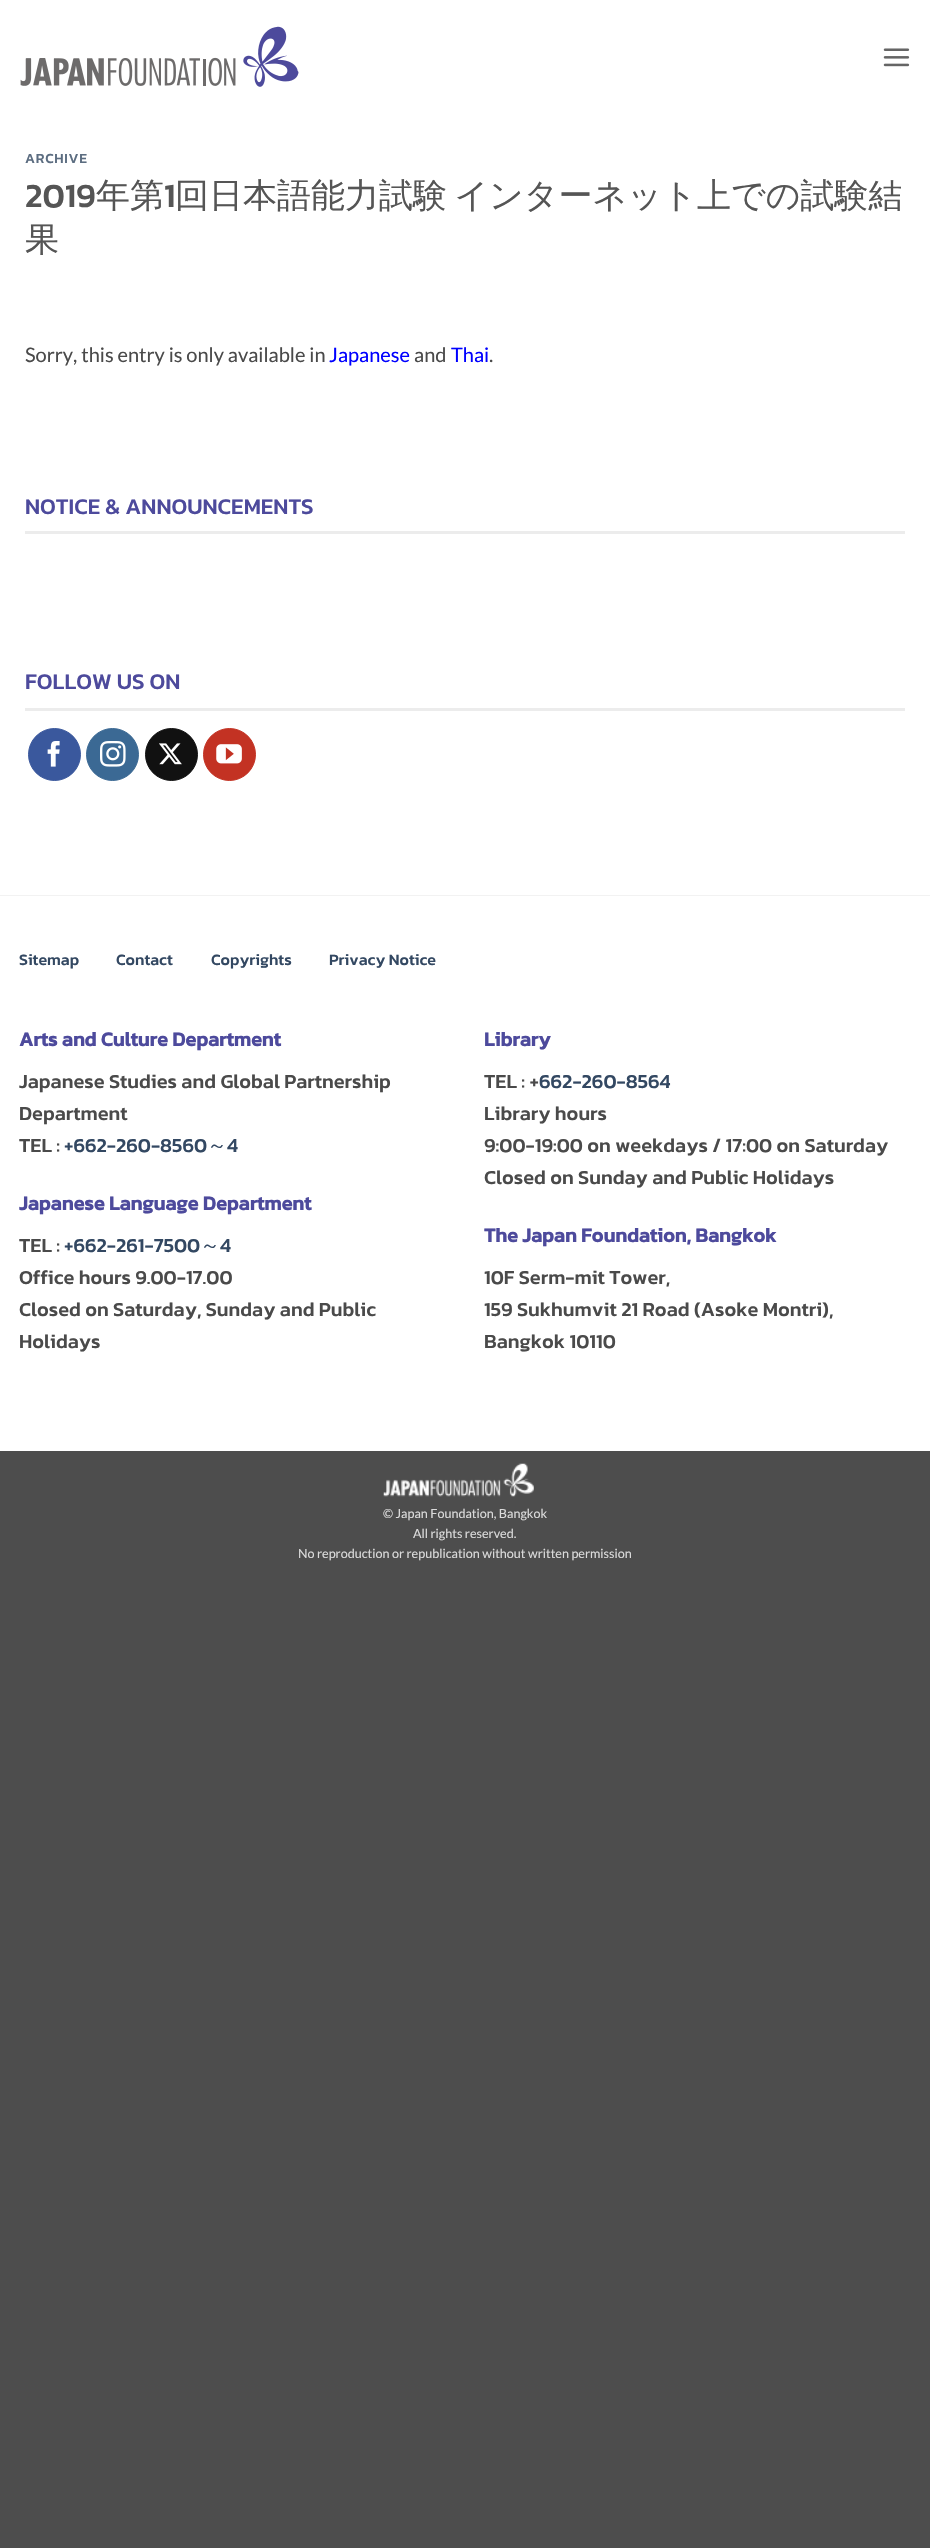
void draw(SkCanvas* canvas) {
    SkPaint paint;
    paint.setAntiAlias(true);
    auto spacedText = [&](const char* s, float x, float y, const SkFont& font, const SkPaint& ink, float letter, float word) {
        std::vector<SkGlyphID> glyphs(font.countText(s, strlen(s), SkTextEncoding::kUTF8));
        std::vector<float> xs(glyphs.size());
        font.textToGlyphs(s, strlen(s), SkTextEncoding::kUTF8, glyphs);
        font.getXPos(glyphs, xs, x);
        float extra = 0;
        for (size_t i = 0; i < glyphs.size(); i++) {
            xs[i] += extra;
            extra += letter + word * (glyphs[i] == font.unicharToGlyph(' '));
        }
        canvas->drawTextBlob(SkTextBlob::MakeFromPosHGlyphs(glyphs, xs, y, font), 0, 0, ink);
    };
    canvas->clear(0xFF4D4D4D);
    paint.setColor(0xFFFFFFFF);
    canvas->drawRect(SkRect::MakeXYWH(0, 0, 930, 1451), paint);
    canvas->drawImageRect(SkImages::DeferredFromEncodedData(SkData::MakeFromFileName("img1.png")), SkRect::MakeXYWH(20, 26, 279, 61), SkSamplingOptions());
    canvas->drawImageRect(SkImages::DeferredFromEncodedData(SkData::MakeFromFileName("img2.png")), SkRect::MakeXYWH(883, 48, 27, 19), SkSamplingOptions());
    SkFont font1(fontMgr->matchFamilyStyle("Kanit", SkFontStyle(500, SkFontStyle::kNormal_Width, SkFontStyle::kUpright_Slant)), 14);
    font1.setSubpixel(true);
    paint.setColor(0xFF5C6D81);
    spacedText("ARCHIVE", 25, 163, font1, paint, 0.75f, 0);
    SkFont font2(fontMgr->matchFamilyStyle("Kanit", SkFontStyle(500, SkFontStyle::kNormal_Width, SkFontStyle::kUpright_Slant)), 34);
    font2.setSubpixel(true);
    paint.setColor(0xFF555555);
    canvas->drawString("2019", 25, 207, font2, paint);
    SkFont font3(fontMgr->matchFamilyStyle("WenQuanYi Zen Hei", SkFontStyle(500, SkFontStyle::kNormal_Width, SkFontStyle::kUpright_Slant)), 34);
    font3.setSubpixel(true);
    canvas->drawString("年第", 96, 207, font3, paint);
    canvas->drawString("1", 164, 207, font2, paint);
    spacedText("回日本語能力試験 インターネット上での試験結", 175, 207, font3, paint, 0, -3);
    canvas->drawString("果", 25, 251, font3, paint);
    SkFont font4(fontMgr->matchFamilyStyle("Lato", SkFontStyle::Normal()), 20);
    font4.setSubpixel(true);
    paint.setColor(0xFF4A4A4A);
    canvas->drawString("Sorry, this entry is only available in", 25, 362, font4, paint);
    paint.setColor(0xFF0000FF);
    canvas->drawString("Japanese", 329, 362, font4, paint);
    paint.setColor(0xFF4A4A4A);
    canvas->drawString("and", 414, 362, font4, paint);
    paint.setColor(0xFF0000FF);
    canvas->drawString("Thai", 451, 362, font4, paint);
    paint.setColor(0xFF4A4A4A);
    canvas->drawString(".", 489, 362, font4, paint);
    paint.setColor(0xFFECECEC);
    canvas->drawRect(SkRect::MakeXYWH(25, 531, 880, 3), paint);
    SkFont font5(fontMgr->matchFamilyStyle("Kanit", SkFontStyle(500, SkFontStyle::kNormal_Width, SkFontStyle::kUpright_Slant)), 22.5f);
    font5.setSubpixel(true);
    paint.setColor(0xFF4D4A9C);
    canvas->drawString("NOTICE & ANNOUNCEMENTS", 25, 514, font5, paint);
    paint.setColor(0xFFECECEC);
    canvas->drawRect(SkRect::MakeXYWH(25, 708, 880, 3), paint);
    paint.setColor(0xFF4D4A9C);
    canvas->drawString("FOLLOW US ON", 25, 689, font5, paint);
    paint.setColor(0xFF3A589D);
    canvas->drawCircle(54.5f, 754.5f, 26, paint);
    paint.setStyle(SkPaint::kStroke_Style);
    paint.setStrokeWidth(1);
    canvas->drawCircle(54.5f, 754.5f, 26, paint);
    canvas->drawImageRect(SkImages::DeferredFromEncodedData(SkData::MakeFromFileName("img3.png")), SkRect::MakeXYWH(47, 741, 13, 26), SkSamplingOptions());
    paint.setStyle(SkPaint::kFill_Style);
    paint.setColor(0xFF3B6994);
    canvas->drawCircle(112.5f, 754.5f, 26, paint);
    paint.setStyle(SkPaint::kStroke_Style);
    canvas->drawCircle(112.5f, 754.5f, 26, paint);
    canvas->drawImageRect(SkImages::DeferredFromEncodedData(SkData::MakeFromFileName("img4.png")), SkRect::MakeXYWH(100, 741, 26, 26), SkSamplingOptions());
    paint.setStyle(SkPaint::kFill_Style);
    paint.setColor(0xFF111111);
    canvas->drawCircle(171.5f, 754.5f, 26, paint);
    paint.setStyle(SkPaint::kStroke_Style);
    canvas->drawCircle(171.5f, 754.5f, 26, paint);
    canvas->drawImageRect(SkImages::DeferredFromEncodedData(SkData::MakeFromFileName("img5.png")), SkRect::MakeXYWH(159, 743, 23, 22), SkSamplingOptions());
    paint.setStyle(SkPaint::kFill_Style);
    paint.setColor(0xFFC33223);
    canvas->drawCircle(229.5f, 754.5f, 26, paint);
    paint.setStyle(SkPaint::kStroke_Style);
    canvas->drawCircle(229.5f, 754.5f, 26, paint);
    canvas->drawImageRect(SkImages::DeferredFromEncodedData(SkData::MakeFromFileName("img6.png")), SkRect::MakeXYWH(216, 744, 26, 20), SkSamplingOptions());
    paint.setStyle(SkPaint::kFill_Style);
    paint.setColor(0xFFF2F2F2);
    canvas->drawRect(SkRect::MakeXYWH(0, 895, 930, 1), paint);
    SkFont font6(fontMgr->matchFamilyStyle("Kanit", SkFontStyle(500, SkFontStyle::kNormal_Width, SkFontStyle::kUpright_Slant)), 16);
    font6.setSubpixel(true);
    paint.setColor(0xFF334862);
    canvas->drawString("Sitemap", 19, 965, font6, paint);
    canvas->drawString("Contact", 116, 965, font6, paint);
    canvas->drawString("Copyrights", 211, 965, font6, paint);
    canvas->drawString("Privacy Notice", 329, 965, font6, paint);
    SkFont font7(fontMgr->matchFamilyStyle("Kanit", SkFontStyle::Bold()), 20);
    font7.setSubpixel(true);
    paint.setColor(0xFF4D4A9C);
    canvas->drawString("Arts and Culture Department", 19, 1046, font7, paint);
    SkFont font8(fontMgr->matchFamilyStyle("Kanit", SkFontStyle(500, SkFontStyle::kNormal_Width, SkFontStyle::kUpright_Slant)), 20);
    font8.setSubpixel(true);
    paint.setColor(0xFF4A4A4A);
    canvas->drawString("Japanese Studies and Global Partnership", 19, 1088, font8, paint);
    canvas->drawString("Department", 19, 1120, font8, paint);
    canvas->drawString("TEL :", 19, 1152, font8, paint);
    paint.setColor(0xFF334862);
    canvas->drawString("+662-260-8560", 64, 1152, font8, paint);
    SkFont font9(fontMgr->matchFamilyStyle("WenQuanYi Zen Hei", SkFontStyle(500, SkFontStyle::kNormal_Width, SkFontStyle::kUpright_Slant)), 20);
    font9.setSubpixel(true);
    canvas->drawString("～", 207, 1152, font9, paint);
    canvas->drawString("4", 227, 1152, font8, paint);
    paint.setColor(0xFF4D4A9C);
    canvas->drawString("Japanese Language Department", 19, 1210, font7, paint);
    paint.setColor(0xFF4A4A4A);
    canvas->drawString("TEL :", 19, 1252, font8, paint);
    paint.setColor(0xFF334862);
    canvas->drawString("+662-261-7500", 64, 1252, font8, paint);
    canvas->drawString("～", 200, 1252, font9, paint);
    canvas->drawString("4", 220, 1252, font8, paint);
    paint.setColor(0xFF4A4A4A);
    canvas->drawString("Office hours 9.00-17.00", 19, 1284, font8, paint);
    canvas->drawString("Closed on Saturday, Sunday and Public", 19, 1316, font8, paint);
    canvas->drawString("Holidays", 19, 1348, font8, paint);
    paint.setColor(0xFF4D4A9C);
    canvas->drawString("Library", 484, 1046, font7, paint);
    paint.setColor(0xFF4A4A4A);
    canvas->drawString("TEL : +", 484, 1088, font8, paint);
    paint.setColor(0xFF334862);
    canvas->drawString("662-260-8564", 539, 1088, font8, paint);
    paint.setColor(0xFF4A4A4A);
    canvas->drawString("Library hours", 484, 1120, font8, paint);
    canvas->drawString("9:00-19:00 on weekdays / 17:00 on Saturday", 484, 1152, font8, paint);
    canvas->drawString("Closed on Sunday and Public Holidays", 484, 1184, font8, paint);
    paint.setColor(0xFF4D4A9C);
    canvas->drawString("The Japan Foundation, Bangkok", 484, 1242, font7, paint);
    paint.setColor(0xFF4A4A4A);
    canvas->drawString("10F Serm-mit Tower,", 484, 1284, font8, paint);
    canvas->drawString("159 Sukhumvit 21 Road (Asoke Montri),", 484, 1316, font8, paint);
    canvas->drawString("Bangkok 10110", 484, 1348, font8, paint);
    canvas->drawImageRect(SkImages::DeferredFromEncodedData(SkData::MakeFromFileName("img7.png")), SkRect::MakeXYWH(383, 1463, 151, 34), SkSamplingOptions());
    SkFont font10(fontMgr->matchFamilyStyle("Lato", SkFontStyle::Normal()), 12.6f);
    font10.setSubpixel(true);
    paint.setColor(0xFFDBDBDB);
    canvas->drawString("© Japan Foundation, Bangkok", 383, 1518, font10, paint);
    canvas->drawString("All rights reserved.", 413, 1538, font10, paint);
    canvas->drawString("No reproduction or republication without written permission", 298, 1558, font10, paint);
}
